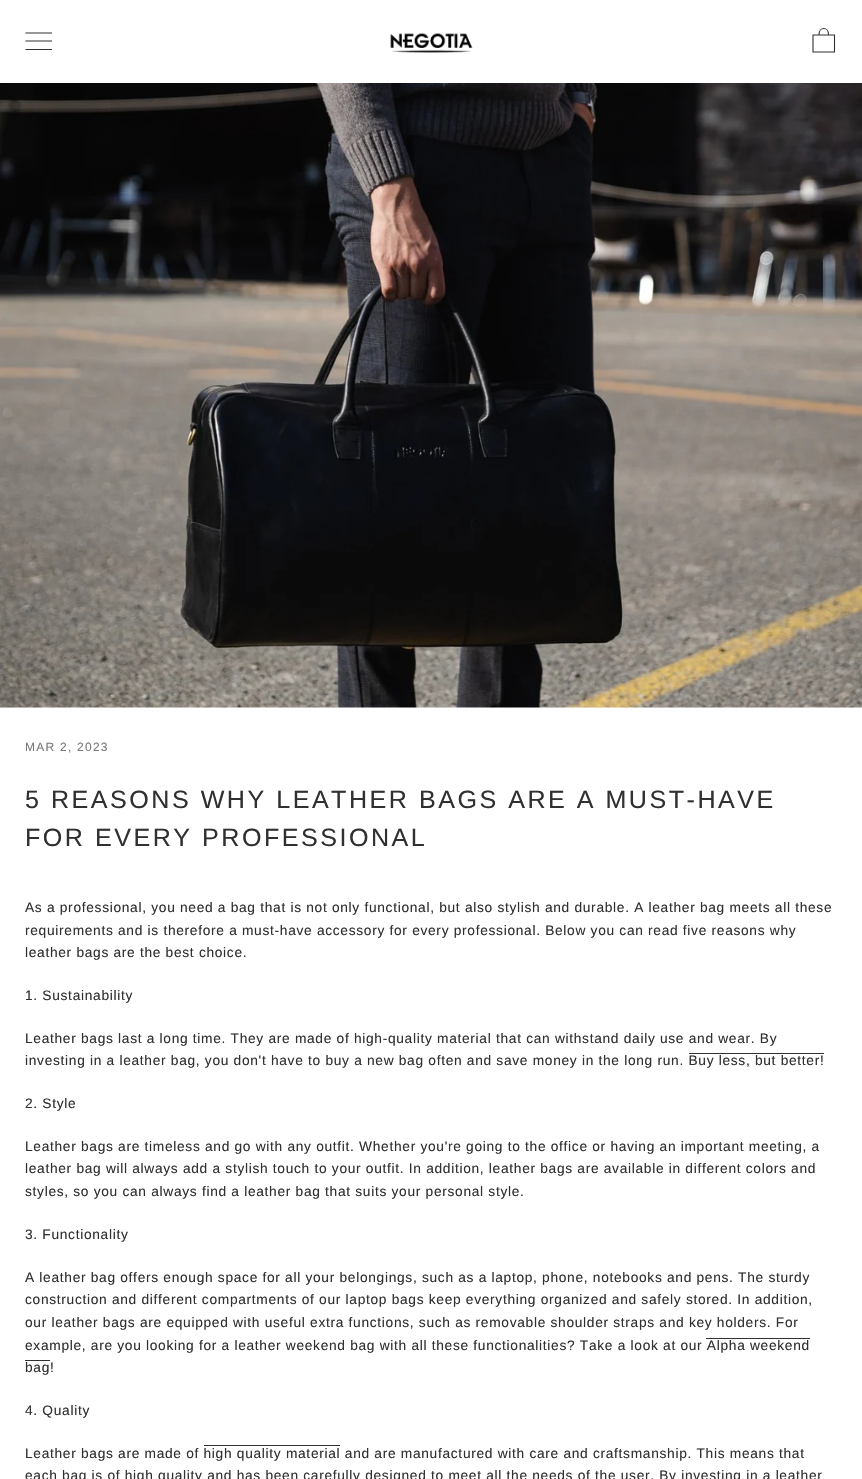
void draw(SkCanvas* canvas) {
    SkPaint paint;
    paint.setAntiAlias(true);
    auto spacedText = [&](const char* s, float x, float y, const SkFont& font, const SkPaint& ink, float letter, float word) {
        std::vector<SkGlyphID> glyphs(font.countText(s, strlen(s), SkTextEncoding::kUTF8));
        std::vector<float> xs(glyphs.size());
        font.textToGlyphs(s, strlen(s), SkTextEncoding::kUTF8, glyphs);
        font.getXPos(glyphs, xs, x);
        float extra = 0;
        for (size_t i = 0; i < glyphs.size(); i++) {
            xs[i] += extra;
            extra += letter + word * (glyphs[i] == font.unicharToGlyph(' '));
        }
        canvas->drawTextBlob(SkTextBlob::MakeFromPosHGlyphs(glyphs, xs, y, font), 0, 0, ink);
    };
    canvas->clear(0xFFFFFFFF);
    paint.setStyle(SkPaint::kStroke_Style);
    paint.setStrokeWidth(1.1f);
    paint.setStrokeCap(SkPaint::kSquare_Cap);
    paint.setColor(0xFF303030);
    canvas->drawPath(SkPathBuilder().moveTo(26, 49.5f).lineTo(51.5f, 49.5f).moveTo(26, 41).lineTo(51.5f, 41).moveTo(26, 33).lineTo(51.5f, 33).detach(), paint);
    canvas->drawImageRect(SkImages::DeferredFromEncodedData(SkData::MakeFromFileName("img1.png")), SkRect::MakeXYWH(390, 33, 83, 20), SkSamplingOptions());
    paint.setStrokeCap(SkPaint::kButt_Cap);
    canvas->drawPath(SkPathBuilder().moveTo(834.5f, 52).lineTo(834.5f, 35).lineTo(813, 35).lineTo(813, 52).close().moveTo(819, 34.5f).cubicTo(819, 26.5f, 828.5f, 26.5f, 828.5f, 34.5f).detach(), paint);
    canvas->drawImageRect(SkImages::DeferredFromEncodedData(SkData::MakeFromFileName("img2.png")), SkRect::MakeXYWH(0, 83, 862, 625), SkSamplingOptions());
    SkFont font1(fontMgr->matchFamilyStyle("Liberation Sans", SkFontStyle::Normal()), 12);
    font1.setSubpixel(true);
    paint.setStyle(SkPaint::kFill_Style);
    paint.setColor(0xFF787878);
    spacedText("MAR 2, 2023", 25, 751, font1, paint, 1.25f, 0);
    SkFont font2(fontMgr->matchFamilyStyle("Liberation Sans", SkFontStyle::Normal()), 25.1f);
    font2.setSubpixel(true);
    paint.setColor(0xFF303030);
    spacedText("5 REASONS WHY LEATHER BAGS ARE A MUST-HAVE", 25, 808, font2, paint, 2.5f, 0);
    spacedText("FOR EVERY PROFESSIONAL", 25, 846, font2, paint, 2.5f, 0);
    SkFont font3(fontMgr->matchFamilyStyle("Liberation Sans", SkFontStyle::Normal()), 13.75f);
    font3.setSubpixel(true);
    spacedText("As a professional, you need a bag that is not only functional, but also stylish and durable. A leather bag meets all these", 25, 912, font3, paint, 0.69f, 0);
    spacedText("requirements and is therefore a must-have accessory for every professional. Below you can read five reasons why", 25, 935, font3, paint, 0.69f, 0);
    spacedText("leather bags are the best choice.", 25, 957, font3, paint, 0.69f, 0);
    spacedText("1. Sustainability", 25, 1000, font3, paint, 0.69f, 0);
    spacedText("Leather bags last a long time. They are made of high-quality material that can withstand daily use and wear. By", 25, 1043, font3, paint, 0.69f, 0);
    canvas->drawRect(SkRect::MakeXYWH(689, 1053, 135, 1), paint);
    spacedText("investing in a leather bag, you don't have to buy a new bag often and save money in the long run. Buy less, but better!", 25, 1065, font3, paint, 0.69f, 0);
    spacedText("2. Style", 25, 1108, font3, paint, 0.69f, 0);
    spacedText("Leather bags are timeless and go with any outfit. Whether you're going to the office or having an important meeting, a", 25, 1151, font3, paint, 0.69f, 0);
    spacedText("leather bag will always add a stylish touch to your outfit. In addition, leather bags are available in different colors and", 25, 1173, font3, paint, 0.69f, 0);
    spacedText("styles, so you can always find a leather bag that suits your personal style.", 25, 1196, font3, paint, 0.69f, 0);
    spacedText("3. Functionality", 25, 1239, font3, paint, 0.69f, 0);
    spacedText("A leather bag offers enough space for all your belongings, such as a laptop, phone, notebooks and pens. The sturdy", 25, 1282, font3, paint, 0.69f, 0);
    spacedText("construction and different compartments of our laptop bags keep everything organized and safely stored. In addition,", 25, 1304, font3, paint, 0.69f, 0);
    spacedText("our leather bags are equipped with useful extra functions, such as removable shoulder straps and key holders. For", 25, 1327, font3, paint, 0.69f, 0);
    spacedText("example, are you looking for a leather weekend bag with all these functionalities? Take a look at our Alpha weekend", 25, 1350, font3, paint, 0.69f, 0);
    spacedText("bag!", 25, 1372, font3, paint, 0.69f, 0);
    canvas->drawRect(SkRect::MakeXYWH(706, 1338, 104, 1), paint);
    canvas->drawRect(SkRect::MakeXYWH(25, 1360, 25, 1), paint);
    spacedText("4. Quality", 25, 1415, font3, paint, 0.69f, 0);
    canvas->drawRect(SkRect::MakeXYWH(204, 1445, 136, 1), paint);
    spacedText("Leather bags are made of high quality material and are manufactured with care and craftsmanship. This means that", 25, 1458, font3, paint, 0.69f, 0);
    spacedText("each bag is of high quality and has been carefully designed to meet all the needs of the user. By investing in a leather", 25, 1480, font3, paint, 0.69f, 0);
}
